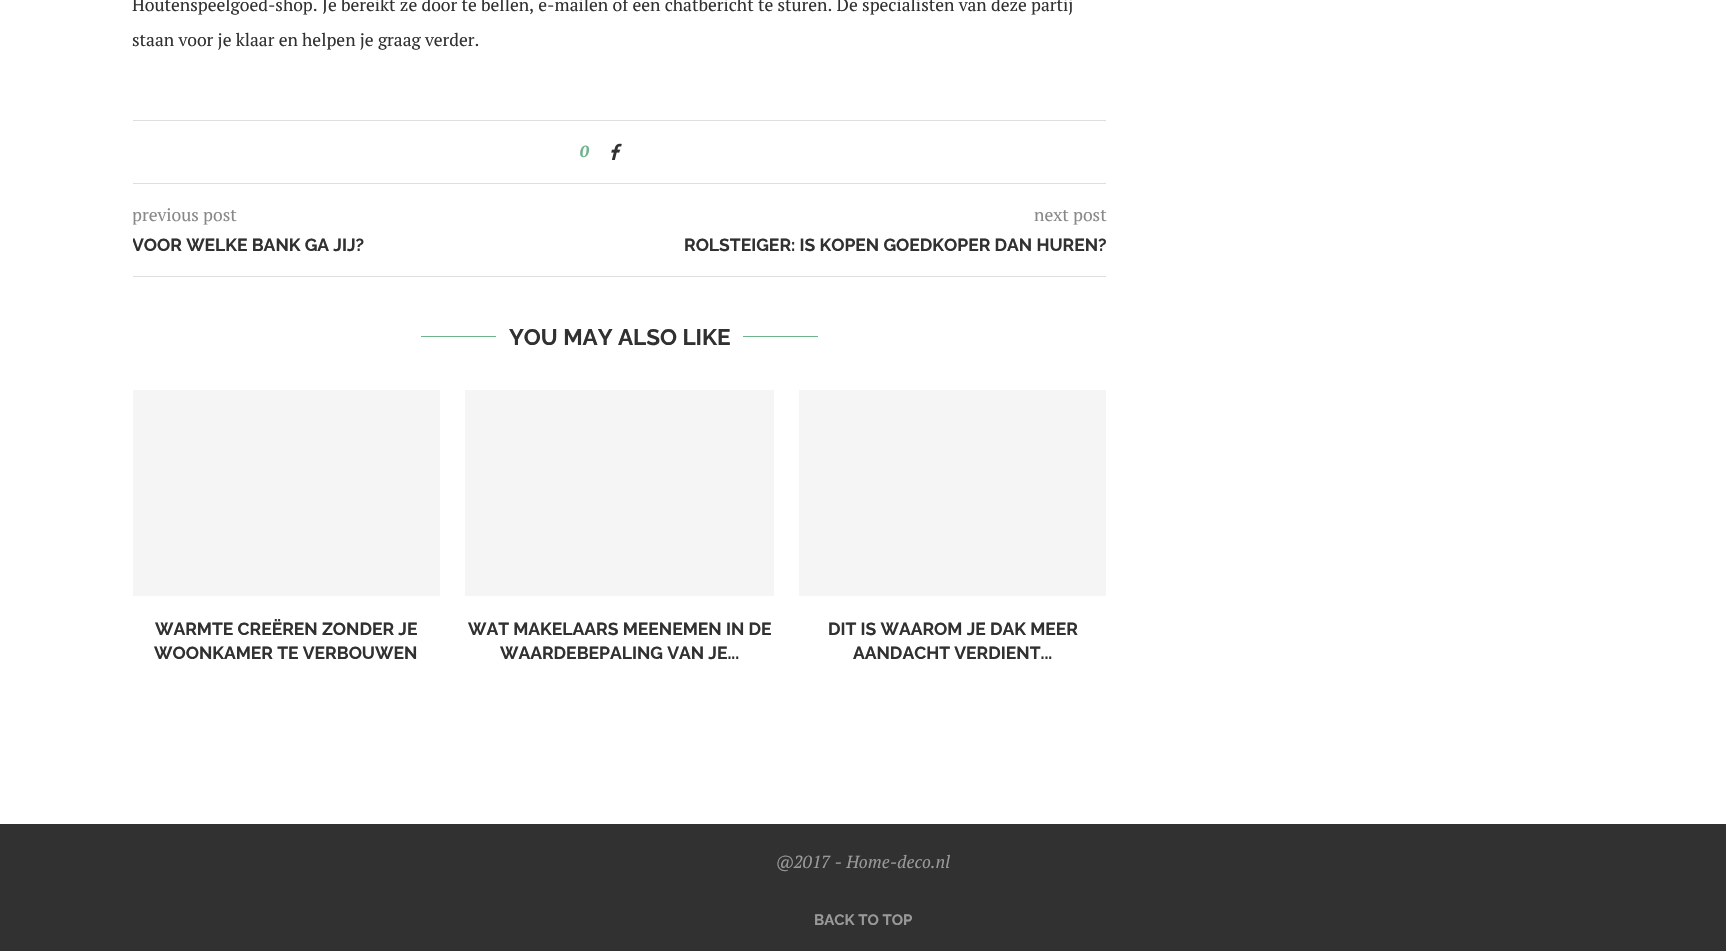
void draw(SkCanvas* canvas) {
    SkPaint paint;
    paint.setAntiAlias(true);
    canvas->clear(0xFFFFFFFF);
    SkFont font1(fontMgr->matchFamilyStyle("PT Serif", SkFontStyle::Normal()), 17.5f);
    font1.setSubpixel(true);
    paint.setColor(0xFF313131);
    canvas->drawString("Houtenspeelgoed-shop. Je bereikt ze door te bellen, e-mailen of een chatbericht te sturen. De specialisten van deze partij", 132, 11, font1, paint);
    canvas->drawString("staan voor je klaar en helpen je graag verder.", 132, 46, font1, paint);
    paint.setColor(0xFFDEDEDE);
    canvas->drawRect(SkRect::MakeXYWH(133, 120, 973, 1), paint);
    SkFont font2(fontMgr->matchFamilyStyle("PT Serif", SkFontStyle::BoldItalic()), 16);
    font2.setSubpixel(true);
    paint.setColor(0xFF6EB48C);
    canvas->drawString("0", 580, 157, font2, paint);
    canvas->drawImageRect(SkImages::DeferredFromEncodedData(SkData::MakeFromFileName("img1.png")), SkRect::MakeXYWH(611, 143, 11, 17), SkSamplingOptions());
    paint.setColor(0xFFDEDEDE);
    canvas->drawRect(SkRect::MakeXYWH(133, 183, 973, 1), paint);
    canvas->save();
    canvas->clipRect(SkRect::MakeXYWH(133, 184, 973, 92));
    paint.setColor(0xFF888888);
    canvas->drawString("previous post", 132, 221, font1, paint);
    SkFont font3(fontMgr->matchFamilyStyle("Raleway", SkFontStyle::Bold()), 17.5f);
    font3.setSubpixel(true);
    paint.setColor(0xFF313131);
    canvas->drawString("VOOR WELKE BANK GA JIJ?", 132, 251, font3, paint);
    canvas->restore();
    paint.setColor(0xFF888888);
    canvas->drawString("next post", 1034, 221, font1, paint);
    paint.setColor(0xFF313131);
    canvas->drawString("ROLSTEIGER: IS KOPEN GOEDKOPER DAN HUREN?", 684, 251, font3, paint);
    paint.setColor(0xFFDEDEDE);
    canvas->drawRect(SkRect::MakeXYWH(133, 276, 973, 1), paint);
    paint.setColor(0xFF6EB48C);
    canvas->drawRect(SkRect::MakeXYWH(421, 336, 75, 1), paint);
    SkFont font4(fontMgr->matchFamilyStyle("Raleway", SkFontStyle::Bold()), 22.5f);
    font4.setSubpixel(true);
    paint.setColor(0xFF313131);
    canvas->drawString("YOU MAY ALSO LIKE", 509, 345, font4, paint);
    paint.setColor(0xFF6EB48C);
    canvas->drawRect(SkRect::MakeXYWH(743, 336, 75, 1), paint);
    paint.setColor(0xFFF5F5F5);
    canvas->drawRect(SkRect::MakeXYWH(133, 390, 307, 206), paint);
    paint.setColor(0xFF313131);
    canvas->drawString("WARMTE CREËREN ZONDER JE", 155, 635, font3, paint);
    canvas->drawString("WOONKAMER TE VERBOUWEN", 154, 659, font3, paint);
    paint.setColor(0xFFF5F5F5);
    canvas->drawRect(SkRect::MakeXYWH(465, 390, 309, 206), paint);
    paint.setColor(0xFF313131);
    canvas->drawString("WAT MAKELAARS MEENEMEN IN DE", 468, 635, font3, paint);
    canvas->drawString("WAARDEBEPALING VAN JE...", 500, 659, font3, paint);
    paint.setColor(0xFFF5F5F5);
    canvas->drawRect(SkRect::MakeXYWH(799, 390, 307, 206), paint);
    paint.setColor(0xFF313131);
    canvas->drawString("DIT IS WAAROM JE DAK MEER", 828, 635, font3, paint);
    canvas->drawString("AANDACHT VERDIENT...", 853, 659, font3, paint);
    canvas->drawRect(SkRect::MakeXYWH(0, 824, 1726, 127), paint);
    SkFont font5(fontMgr->matchFamilyStyle("PT Serif", SkFontStyle::Italic()), 17.5f);
    font5.setSubpixel(true);
    paint.setColor(0xFF999999);
    canvas->drawString("@2017 - Home-deco.nl", 776, 868, font5, paint);
    SkFont font6(fontMgr->matchFamilyStyle("Raleway", SkFontStyle::Bold()), 15);
    font6.setSubpixel(true);
    canvas->drawString("BACK TO TOP", 814, 925, font6, paint);
}
